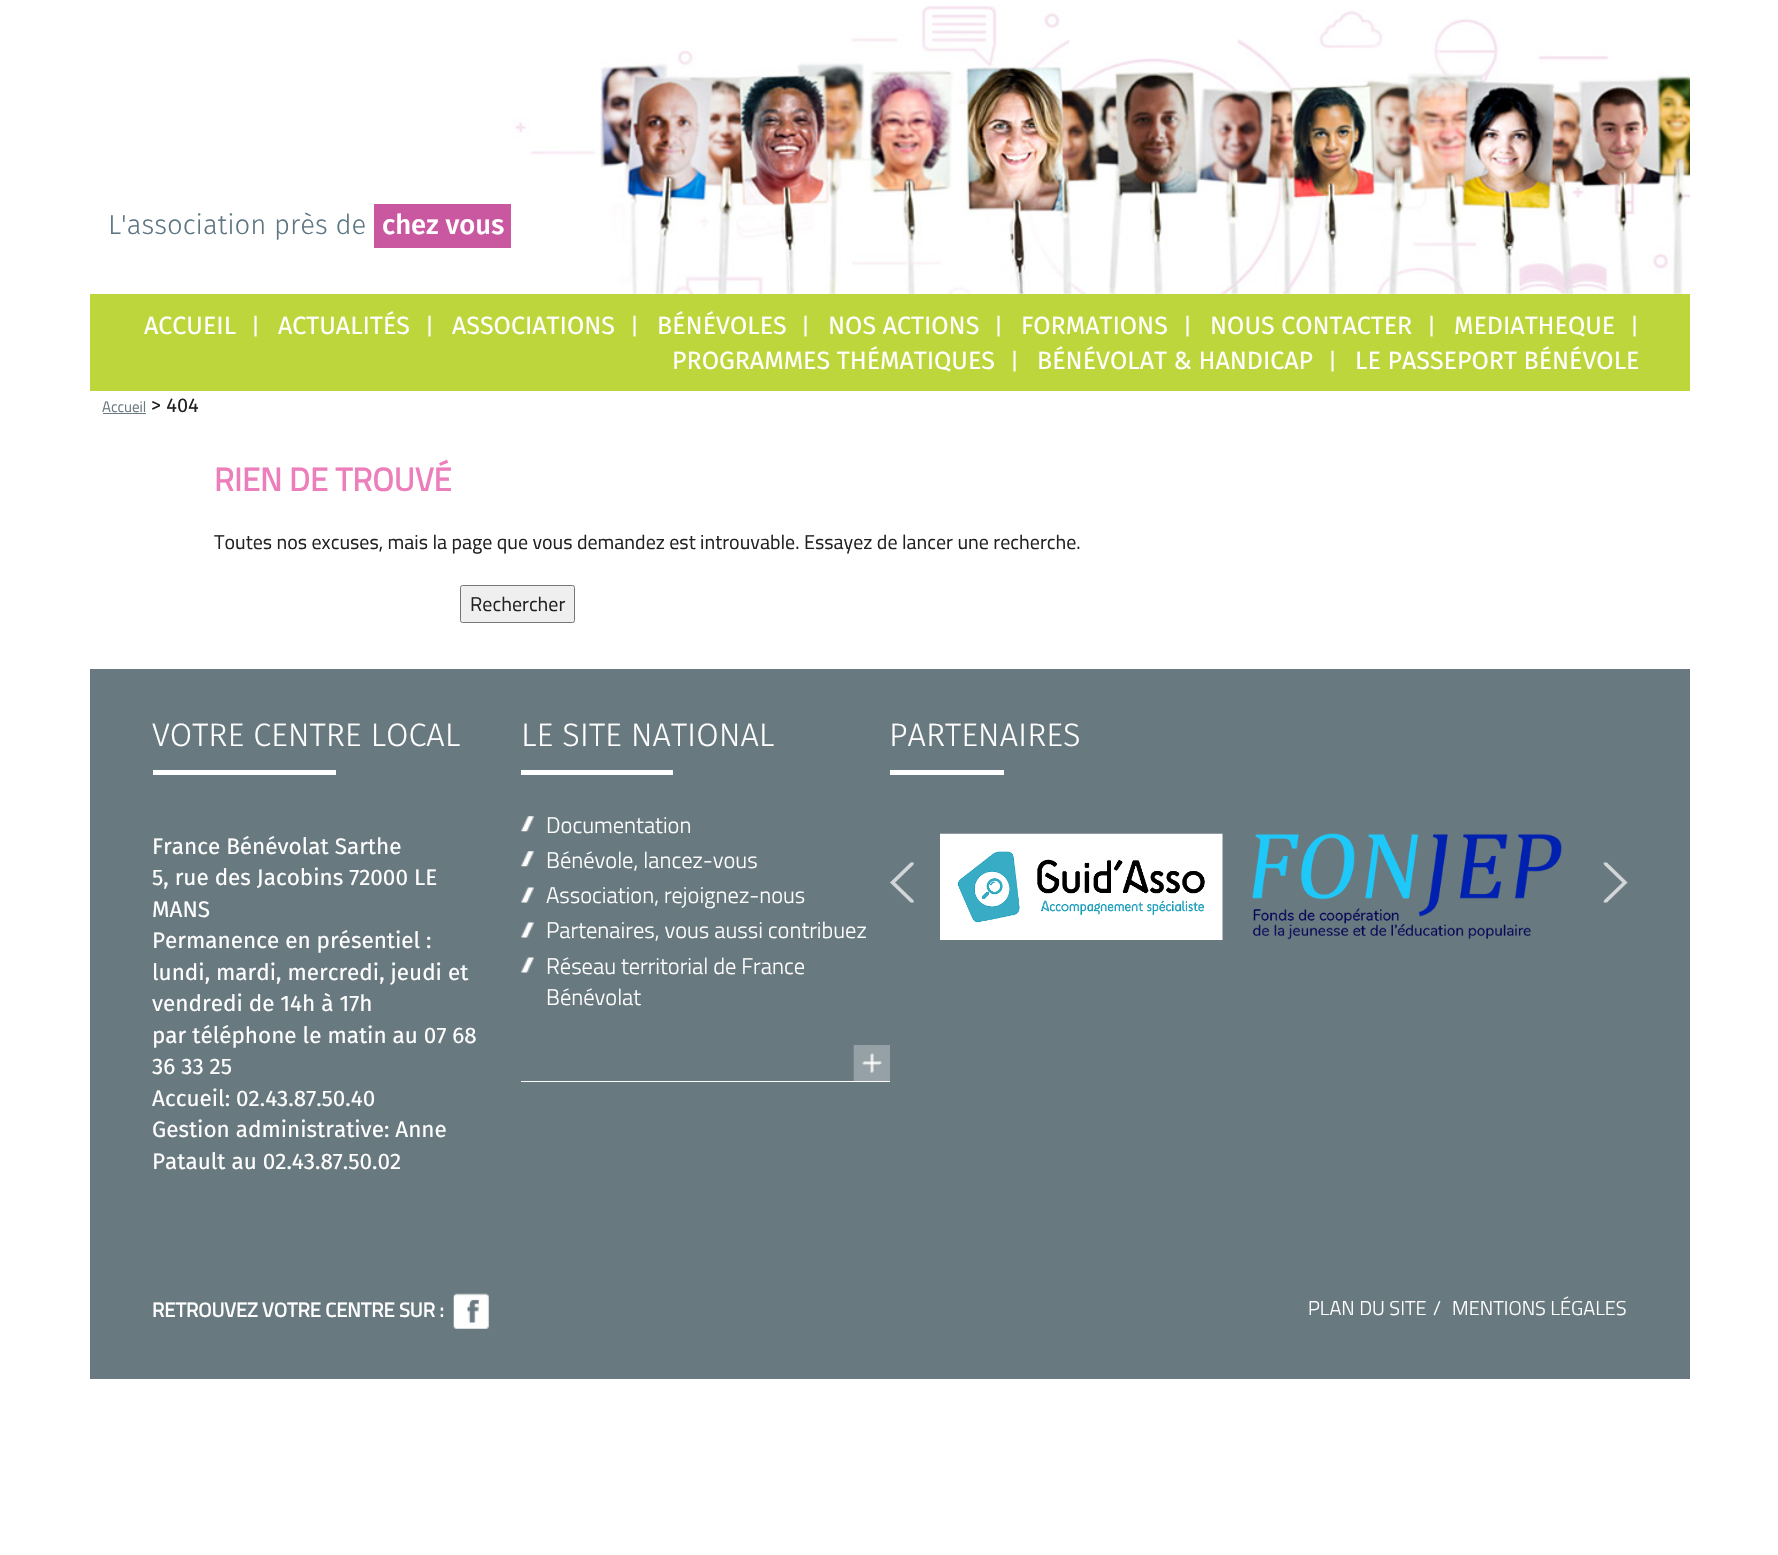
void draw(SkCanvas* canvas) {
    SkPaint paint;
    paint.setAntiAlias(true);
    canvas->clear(0xFFFFFFFF);
    canvas->drawImageRect(SkImages::DeferredFromEncodedData(SkData::MakeFromFileName("img1.png")), SkRect::MakeXYWH(512, 4, 1178, 290), SkSamplingOptions());
    SkFont font1(fontMgr->matchFamilyStyle("Fira Sans", SkFontStyle(300, SkFontStyle::kNormal_Width, SkFontStyle::kUpright_Slant)), 27.5f);
    font1.setSubpixel(true);
    paint.setColor(0xFF5D7683);
    canvas->drawString("L'association près de", 108, 234, font1, paint);
    paint.setColor(0xFFCA58A1);
    canvas->drawRect(SkRect::MakeXYWH(374, 204, 137, 44), paint);
    SkFont font2(fontMgr->matchFamilyStyle("Fira Sans", SkFontStyle(500, SkFontStyle::kNormal_Width, SkFontStyle::kUpright_Slant)), 27.5f);
    font2.setSubpixel(true);
    paint.setColor(0xFFFFFFFF);
    canvas->drawString("chez vous", 382, 234, font2, paint);
    paint.setColor(0xFFBDD63B);
    canvas->drawRect(SkRect::MakeXYWH(90, 294, 1600, 97), paint);
    SkFont font3(fontMgr->matchFamilyStyle("Fira Sans", SkFontStyle::Normal()), 25);
    font3.setSubpixel(true);
    paint.setColor(0xFFFFFFFF);
    canvas->drawString("ACCUEIL", 144, 334, font3, paint);
    SkFont font4(fontMgr->matchFamilyStyle("Fira Sans", SkFontStyle::Normal()), 22.5f);
    font4.setSubpixel(true);
    canvas->drawString("|", 251, 334, font4, paint);
    canvas->drawString("ACTUALITÉS", 278, 334, font3, paint);
    canvas->drawString("|", 425, 334, font4, paint);
    canvas->drawString("ASSOCIATIONS", 452, 334, font3, paint);
    canvas->drawString("|", 630, 334, font4, paint);
    canvas->drawString("BÉNÉVOLES", 657, 334, font3, paint);
    canvas->drawString("|", 801, 334, font4, paint);
    canvas->drawString("NOS ACTIONS", 828, 334, font3, paint);
    canvas->drawString("|", 994, 334, font4, paint);
    canvas->drawString("FORMATIONS", 1021, 334, font3, paint);
    canvas->drawString("|", 1183, 334, font4, paint);
    canvas->drawString("NOUS CONTACTER", 1210, 334, font3, paint);
    canvas->drawString("|", 1427, 334, font4, paint);
    canvas->drawString("MEDIATHEQUE", 1454, 334, font3, paint);
    canvas->drawString("|", 1630, 334, font4, paint);
    canvas->drawString("PROGRAMMES THÉMATIQUES", 672, 369, font3, paint);
    canvas->drawString("|", 1010, 369, font4, paint);
    canvas->drawString("BÉNÉVOLAT & HANDICAP", 1037, 369, font3, paint);
    canvas->drawString("|", 1328, 369, font4, paint);
    canvas->drawString("LE PASSEPORT BÉNÉVOLE", 1355, 369, font3, paint);
    SkFont font5(fontMgr->matchFamilyStyle("Titillium Web", SkFontStyle::Normal()), 15);
    font5.setSubpixel(true);
    paint.setColor(0xFF697980);
    canvas->drawString("Accueil", 102, 412, font5, paint);
    canvas->drawRect(SkRect::MakeXYWH(103, 413, 43, 1), paint);
    SkFont font6(fontMgr->matchFamilyStyle("Fira Sans", SkFontStyle::Normal()), 20);
    font6.setSubpixel(true);
    paint.setColor(0xFF222222);
    canvas->drawString("> 404", 151, 412, font6, paint);
    SkFont font7(fontMgr->matchFamilyStyle("Titillium Web", SkFontStyle::Bold()), 32.5f);
    font7.setSubpixel(true);
    paint.setColor(0xFFED7EBC);
    canvas->drawString("RIEN DE TROUVÉ", 214, 491, font7, paint);
    SkFont font8(fontMgr->matchFamilyStyle("Titillium Web", SkFontStyle::Normal()), 20);
    font8.setSubpixel(true);
    paint.setColor(0xFF222222);
    canvas->drawString("Toutes nos excuses, mais la page que vous demandez est introuvable. Essayez de lancer une recherche.", 214, 549, font8, paint);
    paint.setColor(0xFFEFEFEF);
    canvas->drawRoundRect(SkRect::MakeXYWH(460.5f, 585.5f, 114, 37), 2, 2, paint);
    paint.setStyle(SkPaint::kStroke_Style);
    paint.setStrokeWidth(1);
    paint.setColor(0xFF767676);
    canvas->drawRoundRect(SkRect::MakeXYWH(460.5f, 585.5f, 114, 37), 2, 2, paint);
    paint.setStyle(SkPaint::kFill_Style);
    paint.setColor(0xFF222222);
    canvas->drawString("Rechercher", 470, 611, font8, paint);
    paint.setColor(0xFF697980);
    canvas->drawRect(SkRect::MakeXYWH(90, 669, 1600, 710), paint);
    SkFont font9(fontMgr->matchFamilyStyle("Fira Sans", SkFontStyle(300, SkFontStyle::kNormal_Width, SkFontStyle::kUpright_Slant)), 32.5f);
    font9.setSubpixel(true);
    paint.setColor(0xFFFFFFFF);
    canvas->drawString("VOTRE CENTRE LOCAL", 152, 746, font9, paint);
    canvas->drawRect(SkRect::MakeXYWH(153, 770, 183, 5), paint);
    canvas->drawString("France Bénévolat Sarthe", 152, 854, font4, paint);
    canvas->drawString("5, rue des Jacobins 72000 LE", 152, 885, font4, paint);
    canvas->drawString("MANS", 152, 917, font4, paint);
    canvas->drawString("Permanence en présentiel :", 152, 948, font4, paint);
    canvas->drawString("lundi, mardi, mercredi, jeudi et", 152, 980, font4, paint);
    canvas->drawString("vendredi de 14h à 17h", 152, 1011, font4, paint);
    canvas->drawString("par téléphone le matin au 07 68", 152, 1043, font4, paint);
    canvas->drawString("36 33 25", 152, 1074, font4, paint);
    canvas->drawString("Accueil: 02.43.87.50.40", 152, 1106, font4, paint);
    canvas->drawString("Gestion administrative: Anne", 152, 1137, font4, paint);
    canvas->drawString("Patault au 02.43.87.50.02", 152, 1169, font4, paint);
    canvas->drawString("LE SITE NATIONAL", 521, 746, font9, paint);
    canvas->drawRect(SkRect::MakeXYWH(521, 770, 152, 5), paint);
    canvas->drawImageRect(SkImages::DeferredFromEncodedData(SkData::MakeFromFileName("img2.png")), SkRect::MakeXYWH(521, 816, 13, 16), SkSamplingOptions());
    SkFont font10(fontMgr->matchFamilyStyle("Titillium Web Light", SkFontStyle(300, SkFontStyle::kNormal_Width, SkFontStyle::kUpright_Slant)), 22.5f);
    font10.setSubpixel(true);
    canvas->drawString("Documentation", 546, 833, font10, paint);
    canvas->drawImageRect(SkImages::DeferredFromEncodedData(SkData::MakeFromFileName("img2.png")), SkRect::MakeXYWH(521, 851, 13, 16), SkSamplingOptions());
    canvas->drawString("Bénévole, lancez-vous", 546, 868, font10, paint);
    canvas->drawImageRect(SkImages::DeferredFromEncodedData(SkData::MakeFromFileName("img3.png")), SkRect::MakeXYWH(521, 887, 13, 16), SkSamplingOptions());
    canvas->drawString("Association, rejoignez-nous", 546, 903, font10, paint);
    canvas->drawImageRect(SkImages::DeferredFromEncodedData(SkData::MakeFromFileName("img3.png")), SkRect::MakeXYWH(521, 922, 13, 16), SkSamplingOptions());
    canvas->drawString("Partenaires, vous aussi contribuez", 546, 938, font10, paint);
    canvas->drawImageRect(SkImages::DeferredFromEncodedData(SkData::MakeFromFileName("img3.png")), SkRect::MakeXYWH(521, 957, 13, 16), SkSamplingOptions());
    canvas->drawString("Réseau territorial de France", 546, 974, font10, paint);
    canvas->drawString("Bénévolat", 546, 1005, font10, paint);
    canvas->drawImageRect(SkImages::DeferredFromEncodedData(SkData::MakeFromFileName("img4.png")), SkRect::MakeXYWH(853, 1045, 37, 36), SkSamplingOptions());
    canvas->drawRect(SkRect::MakeXYWH(521, 1081, 369, 1), paint);
    canvas->drawString("PARTENAIRES", 889, 746, font9, paint);
    canvas->drawRect(SkRect::MakeXYWH(890, 770, 114, 5), paint);
    canvas->drawImageRect(SkImages::DeferredFromEncodedData(SkData::MakeFromFileName("img5.png")), SkRect::MakeXYWH(890, 862, 24, 41), SkSamplingOptions());
    canvas->drawImageRect(SkImages::DeferredFromEncodedData(SkData::MakeFromFileName("img6.png")), SkRect::MakeXYWH(940, 833, 283, 107), SkSamplingOptions());
    canvas->drawImageRect(SkImages::DeferredFromEncodedData(SkData::MakeFromFileName("img7.png")), SkRect::MakeXYWH(1252, 833, 310, 107), SkSamplingOptions());
    canvas->drawImageRect(SkImages::DeferredFromEncodedData(SkData::MakeFromFileName("img8.png")), SkRect::MakeXYWH(1603, 862, 25, 41), SkSamplingOptions());
    SkFont font11(fontMgr->matchFamilyStyle("Titillium Web", SkFontStyle::Bold()), 20);
    font11.setSubpixel(true);
    canvas->drawString("RETROUVEZ VOTRE CENTRE SUR :", 152, 1317, font11, paint);
    canvas->drawImageRect(SkImages::DeferredFromEncodedData(SkData::MakeFromFileName("img9.png")), SkRect::MakeXYWH(453, 1293, 36, 36), SkSamplingOptions());
    SkFont font12(fontMgr->matchFamilyStyle("Titillium Web Light", SkFontStyle(300, SkFontStyle::kNormal_Width, SkFontStyle::kUpright_Slant)), 20);
    font12.setSubpixel(true);
    canvas->drawString("PLAN DU SITE", 1308, 1315, font12, paint);
    canvas->drawString("/", 1433, 1315, font12, paint);
    canvas->drawString("MENTIONS LÉGALES", 1452, 1315, font12, paint);
}
